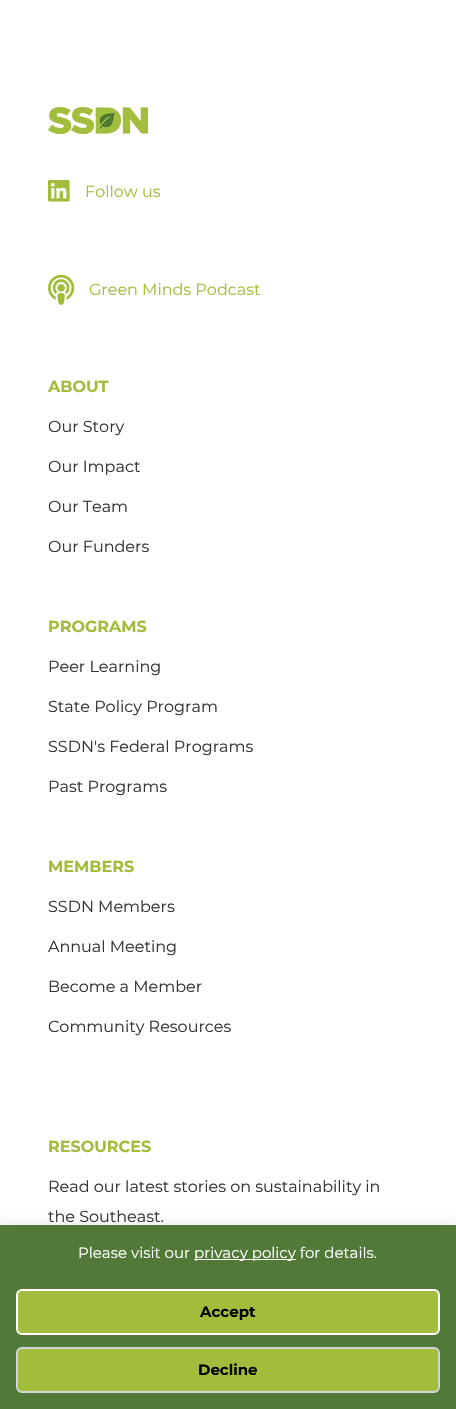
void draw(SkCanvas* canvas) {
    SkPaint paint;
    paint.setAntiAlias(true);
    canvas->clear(0xFFFFFFFF);
    canvas->drawImageRect(SkImages::DeferredFromEncodedData(SkData::MakeFromFileName("img1.png")), SkRect::MakeXYWH(48, 107, 100, 27), SkSamplingOptions());
    canvas->drawImageRect(SkImages::DeferredFromEncodedData(SkData::MakeFromFileName("img2.png")), SkRect::MakeXYWH(48, 180, 22, 22), SkSamplingOptions());
    SkFont font1(fontMgr->matchFamilyStyle("Montserrat", SkFontStyle::Normal()), 16);
    font1.setSubpixel(true);
    paint.setColor(0xFFA2BD3B);
    canvas->drawString("Follow us", 85, 197, font1, paint);
    canvas->drawImageRect(SkImages::DeferredFromEncodedData(SkData::MakeFromFileName("img3.png")), SkRect::MakeXYWH(48, 274, 27, 31), SkSamplingOptions());
    canvas->drawString("Green Minds Podcast", 89, 295, font1, paint);
    SkFont font2(fontMgr->matchFamilyStyle("Montserrat", SkFontStyle::Bold()), 16);
    font2.setSubpixel(true);
    canvas->drawString("ABOUT", 48, 392, font2, paint);
    paint.setColor(0xFF333333);
    canvas->drawString("Our Story", 48, 432, font1, paint);
    canvas->drawString("Our Impact", 48, 472, font1, paint);
    canvas->drawString("Our Team", 48, 512, font1, paint);
    canvas->drawString("Our Funders", 48, 552, font1, paint);
    paint.setColor(0xFFA2BD3B);
    canvas->drawString("PROGRAMS", 48, 632, font2, paint);
    paint.setColor(0xFF333333);
    canvas->drawString("Peer Learning", 48, 672, font1, paint);
    canvas->drawString("State Policy Program", 48, 712, font1, paint);
    canvas->drawString("SSDN's Federal Programs", 48, 752, font1, paint);
    canvas->drawString("Past Programs", 48, 792, font1, paint);
    paint.setColor(0xFFA2BD3B);
    canvas->drawString("MEMBERS", 48, 872, font2, paint);
    paint.setColor(0xFF333333);
    canvas->drawString("SSDN Members", 48, 912, font1, paint);
    canvas->drawString("Annual Meeting", 48, 952, font1, paint);
    canvas->drawString("Become a Member", 48, 992, font1, paint);
    canvas->drawString("Community Resources", 48, 1032, font1, paint);
    paint.setColor(0xFFA2BD3B);
    canvas->drawString("RESOURCES", 48, 1152, font2, paint);
    paint.setColor(0xFF333333);
    canvas->drawString("Read our latest stories on sustainability in", 48, 1192, font1, paint);
    canvas->drawString("the Southeast.", 48, 1222, font1, paint);
    paint.setColor(0x14000000);
    paint.setMaskFilter(SkMaskFilter::MakeBlur(kNormal_SkBlurStyle, 5));
    canvas->drawRect(SkRect::MakeXYWH(0, 1223, 456, 184), paint);
    paint.setMaskFilter(nullptr);
    paint.setColor(0xFF517A38);
    canvas->drawRect(SkRect::MakeXYWH(0, 1225, 456, 184), paint);
    SkFont font3(fontMgr->matchFamilyStyle("Montserrat", SkFontStyle::Normal()), 15);
    font3.setSubpixel(true);
    paint.setColor(0xFFFFFFFF);
    canvas->drawString("Please visit our", 78, 1258, font3, paint);
    canvas->drawRect(SkRect::MakeXYWH(194, 1259, 102, 1), paint);
    canvas->drawString("privacy policy for details.", 194, 1258, font3, paint);
    paint.setColor(0xFFA2BD3B);
    canvas->drawRoundRect(SkRect::MakeXYWH(17, 1290, 422, 44), 5, 5, paint);
    paint.setStyle(SkPaint::kStroke_Style);
    paint.setStrokeWidth(2);
    paint.setColor(0xFFFFFFFF);
    canvas->drawRoundRect(SkRect::MakeXYWH(17, 1290, 422, 44), 5, 5, paint);
    SkFont font4(fontMgr->matchFamilyStyle("Montserrat", SkFontStyle::Bold()), 15);
    font4.setSubpixel(true);
    paint.setStyle(SkPaint::kFill_Style);
    paint.setColor(0xFF000000);
    canvas->drawString("Accept", 200, 1317, font4, paint);
    paint.setColor(0xFFA2BD3B);
    canvas->drawRoundRect(SkRect::MakeXYWH(17, 1348, 422, 44), 5, 5, paint);
    paint.setStyle(SkPaint::kStroke_Style);
    paint.setColor(0xFFD1D5DB);
    canvas->drawRoundRect(SkRect::MakeXYWH(17, 1348, 422, 44), 5, 5, paint);
    paint.setStyle(SkPaint::kFill_Style);
    paint.setColor(0xFF000000);
    canvas->drawString("Decline", 198, 1375, font4, paint);
}
